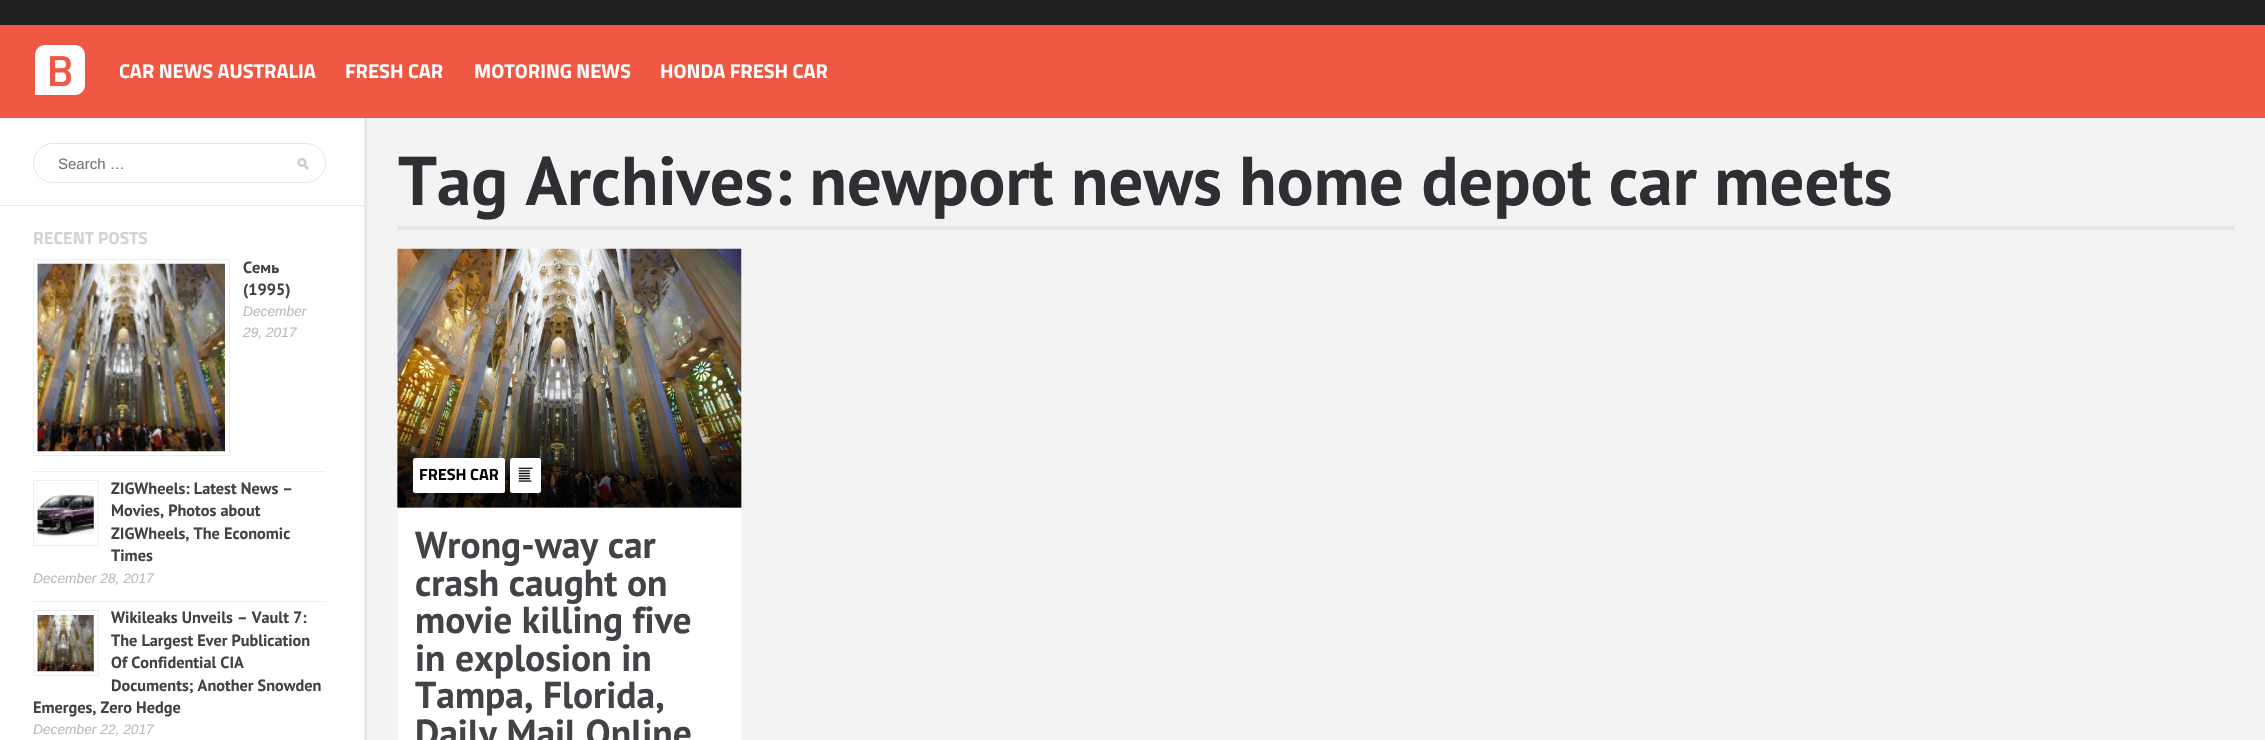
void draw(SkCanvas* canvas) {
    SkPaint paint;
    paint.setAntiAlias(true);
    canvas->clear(0xFFF3F3F4);
    paint.setColor(0xFFEE5845);
    canvas->drawRect(SkRect::MakeXYWH(0, 25, 2265, 93), paint);
    paint.setColor(0xFF1F2021);
    canvas->drawRect(SkRect::MakeXYWH(0, 0, 2265, 25), paint);
    canvas->drawImageRect(SkImages::DeferredFromEncodedData(SkData::MakeFromFileName("img1.png")), SkRect::MakeXYWH(35, 45, 50, 50), SkSamplingOptions());
    SkFont font1(fontMgr->matchFamilyStyle("Titillium Web", SkFontStyle::Bold()), 20);
    font1.setSubpixel(true);
    paint.setColor(0xFFFFFFFF);
    canvas->drawString("CAR NEWS AUSTRALIA", 119, 78, font1, paint);
    canvas->drawString("FRESH CAR", 345, 78, font1, paint);
    canvas->drawString("MOTORING NEWS", 474, 78, font1, paint);
    canvas->drawString("HONDA FRESH CAR", 660, 78, font1, paint);
    canvas->drawRect(SkRect::MakeXYWH(0, 118, 364, 622), paint);
    paint.setColor(0xFFE7E7E9);
    canvas->drawRect(SkRect::MakeXYWH(364, 118, 3, 622), paint);
    canvas->drawImageRect(SkImages::DeferredFromEncodedData(SkData::MakeFromFileName("img2.png")), SkRect::MakeXYWH(297, 158, 12, 12), SkSamplingOptions());
    paint.setStyle(SkPaint::kStroke_Style);
    paint.setStrokeWidth(1);
    paint.setColor(0xFFE5E5E5);
    canvas->drawRoundRect(SkRect::MakeXYWH(33.5f, 143.5f, 292, 39), 19.5f, 19.5f, paint);
    SkFont font2(fontMgr->matchFamilyStyle("Liberation Sans", SkFontStyle::Normal()), 15);
    font2.setSubpixel(true);
    paint.setStyle(SkPaint::kFill_Style);
    paint.setColor(0xFF757575);
    canvas->drawString("Search …", 58, 169, font2, paint);
    paint.setColor(0xFFE7E7E9);
    canvas->drawRect(SkRect::MakeXYWH(0, 205, 364, 1), paint);
    SkFont font3(fontMgr->matchFamilyStyle("Titillium Web", SkFontStyle::Bold()), 17.5f);
    font3.setSubpixel(true);
    paint.setColor(0xFFD2D3D3);
    canvas->drawString("RECENT POSTS", 33, 244, font3, paint);
    paint.setColor(0xFFEEEEEE);
    canvas->drawRect(SkRect::MakeXYWH(33, 471, 293, 1), paint);
    paint.setStyle(SkPaint::kStroke_Style);
    canvas->drawRect(SkRect::MakeXYWH(33.5f, 259.5f, 196, 196), paint);
    canvas->drawImageRect(SkImages::DeferredFromEncodedData(SkData::MakeFromFileName("img3.png")), SkRect::MakeXYWH(37, 263, 188, 189), SkSamplingOptions());
    SkFont font4(fontMgr->matchFamilyStyle("PT Sans", SkFontStyle::Bold()), 16.25f);
    font4.setSubpixel(true);
    paint.setStyle(SkPaint::kFill_Style);
    paint.setColor(0xFF424347);
    canvas->drawString("Семь", 243, 273, font4, paint);
    canvas->drawString("(1995)", 243, 295, font4, paint);
    SkFont font5(fontMgr->matchFamilyStyle("Liberation Sans", SkFontStyle::Italic()), 13.75f);
    font5.setSubpixel(true);
    paint.setColor(0xFFBBBBBB);
    canvas->drawString("December", 243, 316, font5, paint);
    canvas->drawString("29, 2017", 243, 337, font5, paint);
    paint.setColor(0xFFEEEEEE);
    canvas->drawRect(SkRect::MakeXYWH(33, 601, 293, 1), paint);
    paint.setStyle(SkPaint::kStroke_Style);
    canvas->drawRect(SkRect::MakeXYWH(33.5f, 480.5f, 65, 65), paint);
    canvas->drawImageRect(SkImages::DeferredFromEncodedData(SkData::MakeFromFileName("img4.png")), SkRect::MakeXYWH(37, 494, 57, 43), SkSamplingOptions());
    paint.setStyle(SkPaint::kFill_Style);
    paint.setColor(0xFF424347);
    canvas->drawString("ZIGWheels: Latest News –", 111, 494, font4, paint);
    canvas->drawString("Movies, Photos about", 111, 516, font4, paint);
    canvas->drawString("ZIGWheels, The Economic", 111, 539, font4, paint);
    canvas->drawString("Times", 111, 561, font4, paint);
    paint.setColor(0xFFBBBBBB);
    canvas->drawString("December 28, 2017", 33, 583, font5, paint);
    paint.setStyle(SkPaint::kStroke_Style);
    paint.setColor(0xFFEEEEEE);
    canvas->drawRect(SkRect::MakeXYWH(33.5f, 610.5f, 65, 65), paint);
    canvas->drawImageRect(SkImages::DeferredFromEncodedData(SkData::MakeFromFileName("img5.png")), SkRect::MakeXYWH(37, 615, 57, 57), SkSamplingOptions());
    paint.setStyle(SkPaint::kFill_Style);
    paint.setColor(0xFF424347);
    canvas->drawString("Wikileaks Unveils – Vault 7:", 111, 623, font4, paint);
    canvas->drawString("The Largest Ever Publication", 111, 646, font4, paint);
    canvas->drawString("Of Confidential CIA", 111, 668, font4, paint);
    canvas->drawString("Documents; Another Snowden", 111, 691, font4, paint);
    canvas->drawString("Emerges, Zero Hedge", 33, 713, font4, paint);
    paint.setColor(0xFFBBBBBB);
    canvas->drawString("December 22, 2017", 33, 734, font5, paint);
    paint.setColor(0xFFE5E5E5);
    canvas->drawRect(SkRect::MakeXYWH(398, 226, 1836, 4), paint);
    SkFont font6(fontMgr->matchFamilyStyle("PT Sans", SkFontStyle::Bold()), 68.75f);
    font6.setSubpixel(true);
    paint.setColor(0xFF2E2F32);
    canvas->drawString("Tag Archives: newport news home depot car meets", 398, 205, font6, paint);
    paint.setColor(0xFFFFFFFF);
    canvas->drawRect(SkRect::MakeXYWH(398, 507, 343, 233), paint);
    canvas->drawImageRect(SkImages::DeferredFromEncodedData(SkData::MakeFromFileName("img6.png")), SkRect::MakeXYWH(397, 248, 345, 260), SkSamplingOptions());
    canvas->drawImageRect(SkImages::DeferredFromEncodedData(SkData::MakeFromFileName("img7.png")), SkRect::MakeXYWH(397, 377, 345, 131), SkSamplingOptions());
    canvas->drawRoundRect(SkRect::MakeXYWH(413, 458, 92, 35), 2.5f, 2.5f, paint);
    SkFont font7(fontMgr->matchFamilyStyle("Titillium Web", SkFontStyle::Bold()), 16.25f);
    font7.setSubpixel(true);
    paint.setColor(0xFF000000);
    canvas->drawString("FRESH CAR", 419, 480, font7, paint);
    paint.setColor(0xFFFFFFFF);
    canvas->drawRoundRect(SkRect::MakeXYWH(510, 458, 31, 35), 2.5f, 2.5f, paint);
    canvas->drawImageRect(SkImages::DeferredFromEncodedData(SkData::MakeFromFileName("img8.png")), SkRect::MakeXYWH(518, 467, 15, 15), SkSamplingOptions());
    SkFont font8(fontMgr->matchFamilyStyle("PT Sans", SkFontStyle::Bold()), 37.5f);
    font8.setSubpixel(true);
    paint.setColor(0xFF424347);
    canvas->drawString("Wrong-way car", 415, 558, font8, paint);
    canvas->drawString("crash caught on", 415, 596, font8, paint);
    canvas->drawString("movie killing five", 415, 633, font8, paint);
    canvas->drawString("in explosion in", 415, 671, font8, paint);
    canvas->drawString("Tampa, Florida,", 415, 708, font8, paint);
    canvas->drawString("Daily Mail Online", 415, 746, font8, paint);
}
